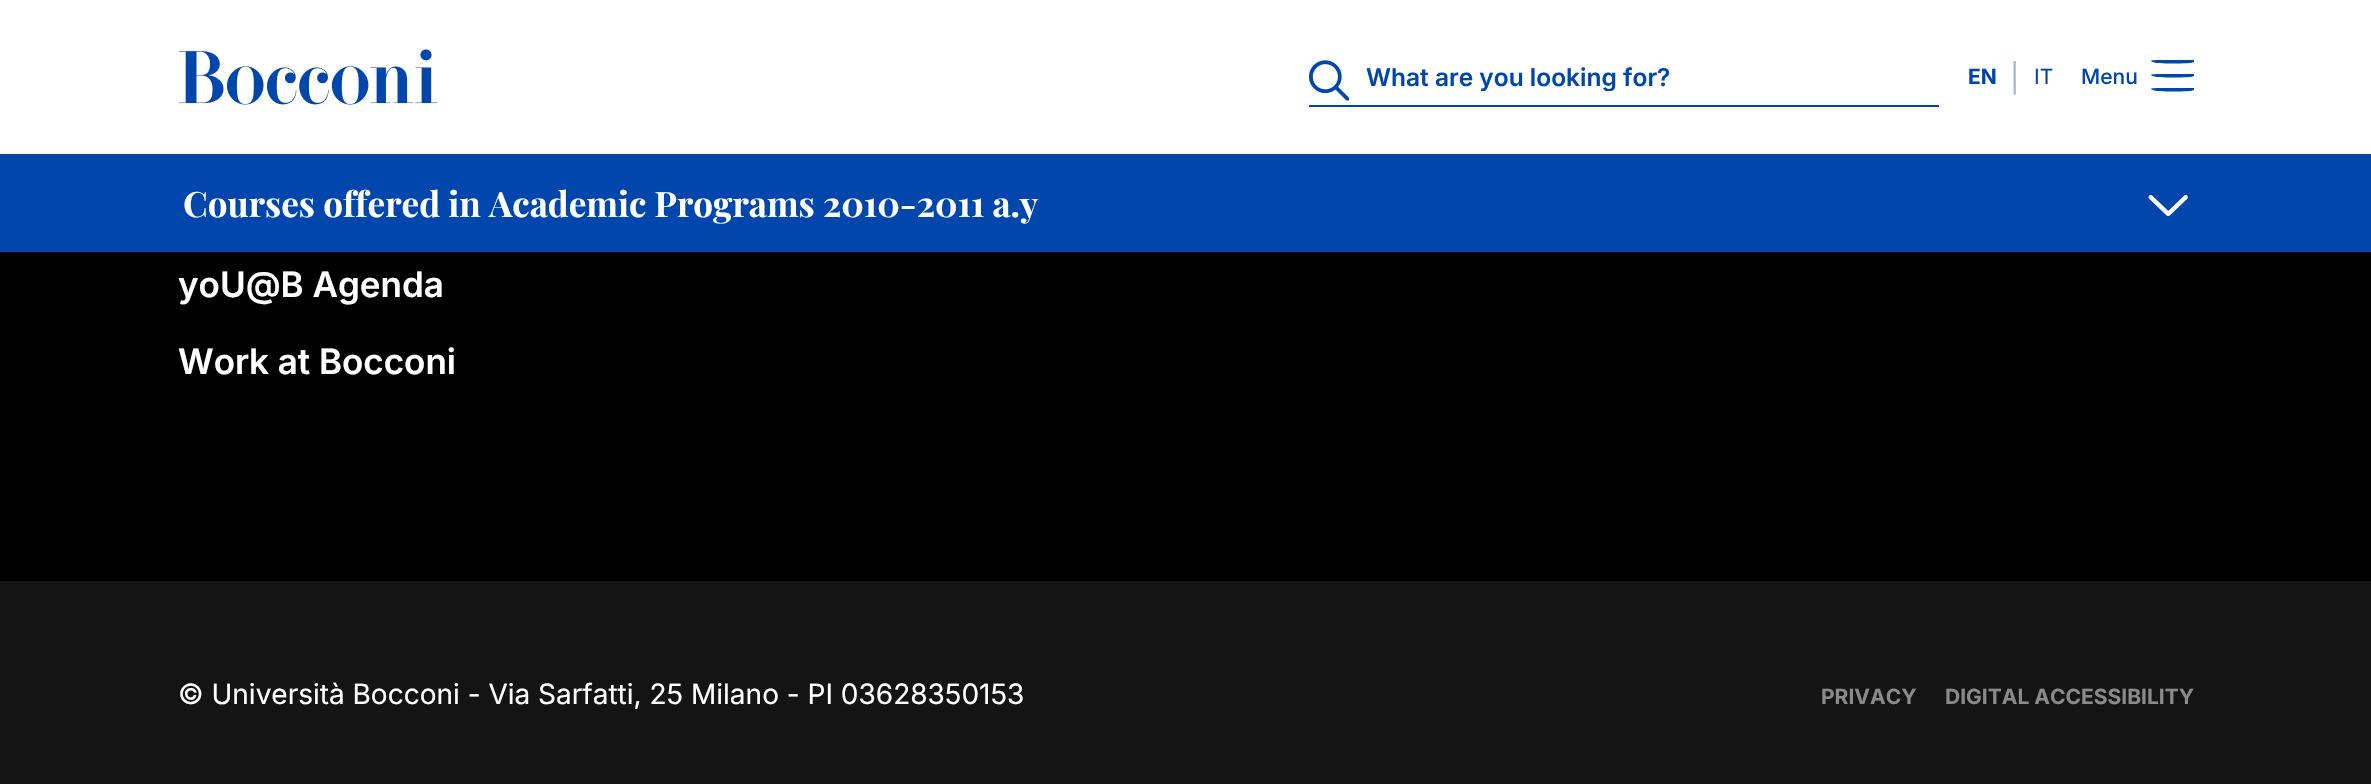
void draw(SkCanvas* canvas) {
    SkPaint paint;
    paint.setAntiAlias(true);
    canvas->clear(0xFF000000);
    paint.setColor(0xFFFFFFFF);
    canvas->drawRect(SkRect::MakeXYWH(0, 0, 2371, 154), paint);
    canvas->drawImageRect(SkImages::DeferredFromEncodedData(SkData::MakeFromFileName("img1.png")), SkRect::MakeXYWH(179, 49, 259, 56), SkSamplingOptions());
    paint.setColor(0xFF0046AD);
    canvas->drawRect(SkRect::MakeXYWH(1309, 105, 630, 2), paint);
    canvas->drawImageRect(SkImages::DeferredFromEncodedData(SkData::MakeFromFileName("img2.png")), SkRect::MakeXYWH(1309, 60, 41, 41), SkSamplingOptions());
    canvas->save();
    canvas->clipRect(SkRect::MakeXYWH(1365, 61, 574, 30));
    SkFont font1(fontMgr->matchFamilyStyle("Inter", SkFontStyle(600, SkFontStyle::kNormal_Width, SkFontStyle::kUpright_Slant)), 24.5f);
    font1.setSubpixel(true);
    canvas->drawString("What are you looking for?", 1366, 86, font1, paint);
    canvas->restore();
    SkFont font2(fontMgr->matchFamilyStyle("Inter", SkFontStyle::Bold()), 21);
    font2.setSubpixel(true);
    canvas->drawString("EN", 1968, 84, font2, paint);
    SkFont font3(fontMgr->matchFamilyStyle("Inter", SkFontStyle::Normal()), 28);
    font3.setSubpixel(true);
    paint.setColor(0xFFA2B8D9);
    canvas->drawString("|", 2010, 88, font3, paint);
    SkFont font4(fontMgr->matchFamilyStyle("Inter", SkFontStyle::Normal()), 21);
    font4.setSubpixel(true);
    paint.setColor(0xFF0046AD);
    canvas->drawString("IT", 2034, 84, font4, paint);
    SkFont font5(fontMgr->matchFamilyStyle("Inter", SkFontStyle(500, SkFontStyle::kNormal_Width, SkFontStyle::kUpright_Slant)), 21);
    font5.setSubpixel(true);
    canvas->drawString("Menu", 2081, 84, font5, paint);
    canvas->drawPath(SkPathBuilder().moveTo(2161, 60).lineTo(2189, 60).lineTo(2194, 60).lineTo(2194, 62).cubicTo(2192, 64, 2155, 64, 2153, 62).cubicTo(2146, 60, 2160, 60, 2161, 60).close().moveTo(2161, 74).lineTo(2189, 74).lineTo(2194, 74).lineTo(2194, 76).cubicTo(2192, 78, 2155, 78, 2153, 76).cubicTo(2146, 74, 2160, 74, 2161, 74).close().moveTo(2161, 88).lineTo(2189, 88).lineTo(2194, 88).lineTo(2194, 90).cubicTo(2192, 92, 2155, 92, 2153, 90).cubicTo(2146, 88, 2160, 88, 2161, 88).close().detach(), paint);
    canvas->drawRect(SkRect::MakeXYWH(0, 154, 2371, 98), paint);
    SkFont font6(fontMgr->matchFamilyStyle("Playfair Display", SkFontStyle::Bold()), 35);
    font6.setSubpixel(true);
    paint.setColor(0xFFFFFFFF);
    canvas->drawString("Courses offered in Academic Programs 2010-2011 a.y", 183, 217, font6, paint);
    canvas->drawImageRect(SkImages::DeferredFromEncodedData(SkData::MakeFromFileName("img3.png")), SkRect::MakeXYWH(2148, 195, 40, 22), SkSamplingOptions());
    SkFont font7(fontMgr->matchFamilyStyle("Inter", SkFontStyle(600, SkFontStyle::kNormal_Width, SkFontStyle::kUpright_Slant)), 35);
    font7.setSubpixel(true);
    canvas->drawString("yoU@B Agenda", 178, 297, font7, paint);
    canvas->drawString("Work at Bocconi", 178, 374, font7, paint);
    paint.setColor(0xFF141414);
    canvas->drawRect(SkRect::MakeXYWH(0, 581, 2371, 203), paint);
    paint.setColor(0xFFFFFFFF);
    canvas->drawString("© Università Bocconi - Via Sarfatti, 25 Milano - PI 03628350153", 178, 704, font3, paint);
    paint.setColor(0xFF8A8A8A);
    canvas->drawString("PRIVACY", 1821, 704, font2, paint);
    canvas->drawString("DIGITAL ACCESSIBILITY", 1945, 704, font2, paint);
}
